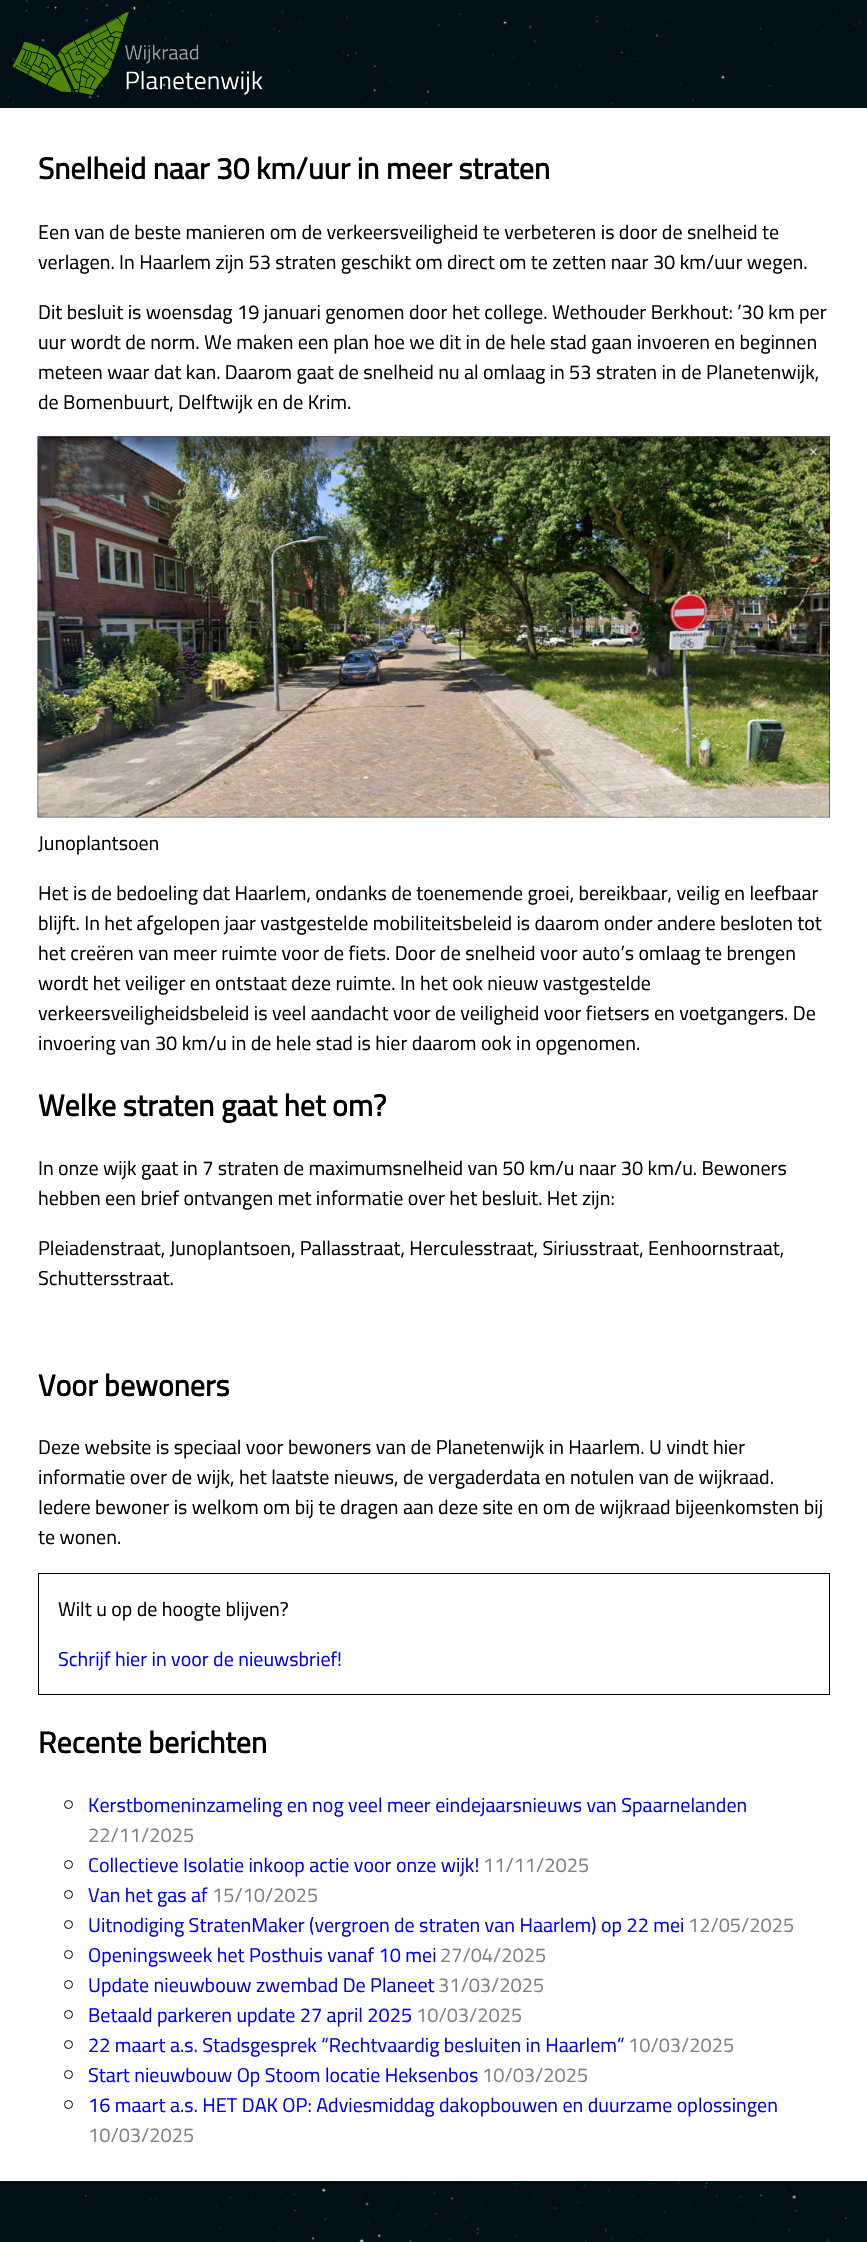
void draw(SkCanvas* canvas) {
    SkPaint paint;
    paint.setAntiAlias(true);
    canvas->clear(0xFFFFFFFF);
    canvas->drawImageRect(SkImages::DeferredFromEncodedData(SkData::MakeFromFileName("img1.png")), SkRect::MakeXYWH(0, 107, 867, 2135), SkSamplingOptions());
    canvas->drawImageRect(SkImages::DeferredFromEncodedData(SkData::MakeFromFileName("img2.png")), SkRect::MakeXYWH(0, 0, 867, 107), SkSamplingOptions());
    canvas->drawImageRect(SkImages::DeferredFromEncodedData(SkData::MakeFromFileName("img3.png")), SkRect::MakeXYWH(12, 12, 251, 83), SkSamplingOptions());
    paint.setColor(0xFFFFFFFF);
    canvas->drawRect(SkRect::MakeXYWH(0, 108, 867, 2073), paint);
    SkFont font1(fontMgr->matchFamilyStyle("Titillium Web", SkFontStyle::Bold()), 30);
    font1.setSubpixel(true);
    paint.setColor(0xFF000000);
    canvas->drawString("Snelheid naar 30 km/uur in meer straten", 38, 179, font1, paint);
    SkFont font2(fontMgr->matchFamilyStyle("Titillium Web", SkFontStyle::Normal()), 20);
    font2.setSubpixel(true);
    canvas->drawString("Een van de beste manieren om de verkeersveiligheid te verbeteren is door de snelheid te", 38, 239, font2, paint);
    canvas->drawString("verlagen. In Haarlem zijn 53 straten geschikt om direct om te zetten naar 30 km/uur wegen.", 38, 269, font2, paint);
    canvas->drawString("Dit besluit is woensdag 19 januari genomen door het college. Wethouder Berkhout: ’30 km per", 38, 319, font2, paint);
    canvas->drawString("uur wordt de norm. We maken een plan hoe we dit in de hele stad gaan invoeren en beginnen", 38, 349, font2, paint);
    canvas->drawString("meteen waar dat kan. Daarom gaat de snelheid nu al omlaag in 53 straten in de Planetenwijk,", 38, 379, font2, paint);
    canvas->drawString("de Bomenbuurt, Delftwijk en de Krim.", 38, 409, font2, paint);
    canvas->drawImageRect(SkImages::DeferredFromEncodedData(SkData::MakeFromFileName("img4.png")), SkRect::MakeXYWH(37, 436, 793, 382), SkSamplingOptions());
    canvas->drawString("Junoplantsoen", 38, 850, font2, paint);
    canvas->drawString("Het is de bedoeling dat Haarlem, ondanks de toenemende groei, bereikbaar, veilig en leefbaar", 38, 900, font2, paint);
    canvas->drawString("blijft. In het afgelopen jaar vastgestelde mobiliteitsbeleid is daarom onder andere besloten tot", 38, 930, font2, paint);
    canvas->drawString("het creëren van meer ruimte voor de fiets. Door de snelheid voor auto’s omlaag te brengen", 38, 960, font2, paint);
    canvas->drawString("wordt het veiliger en ontstaat deze ruimte. In het ook nieuw vastgestelde", 38, 990, font2, paint);
    canvas->drawString("verkeersveiligheidsbeleid is veel aandacht voor de veiligheid voor fietsers en voetgangers. De", 38, 1020, font2, paint);
    canvas->drawString("invoering van 30 km/u in de hele stad is hier daarom ook in opgenomen.", 38, 1050, font2, paint);
    canvas->drawString("Welke straten gaat het om?", 38, 1116, font1, paint);
    canvas->drawString("In onze wijk gaat in 7 straten de maximumsnelheid van 50 km/u naar 30 km/u. Bewoners", 38, 1175, font2, paint);
    canvas->drawString("hebben een brief ontvangen met informatie over het besluit. Het zijn:", 38, 1205, font2, paint);
    canvas->drawString("Pleiadenstraat, Junoplantsoen, Pallasstraat, Herculesstraat, Siriusstraat, Eenhoornstraat,", 38, 1255, font2, paint);
    canvas->drawString("Schuttersstraat.", 38, 1285, font2, paint);
    canvas->drawString("Voor bewoners", 38, 1396, font1, paint);
    canvas->drawString("Deze website is speciaal voor bewoners van de Planetenwijk in Haarlem. U vindt hier", 38, 1454, font2, paint);
    canvas->drawString("informatie over de wijk, het laatste nieuws, de vergaderdata en notulen van de wijkraad.", 38, 1484, font2, paint);
    canvas->drawString("Iedere bewoner is welkom om bij te dragen aan deze site en om de wijkraad bijeenkomsten bij", 38, 1514, font2, paint);
    canvas->drawString("te wonen.", 38, 1544, font2, paint);
    paint.setStyle(SkPaint::kStroke_Style);
    paint.setStrokeWidth(1);
    canvas->drawRect(SkRect::MakeXYWH(38.5f, 1573.5f, 791, 121), paint);
    paint.setStyle(SkPaint::kFill_Style);
    canvas->drawString("Wilt u op de hoogte blijven?", 58, 1616, font2, paint);
    paint.setColor(0xFF0000EE);
    canvas->drawString("Schrijf hier in voor de nieuwsbrief!", 58, 1666, font2, paint);
    paint.setColor(0xFF000000);
    canvas->drawString("Recente berichten", 38, 1753, font1, paint);
    paint.setStyle(SkPaint::kStroke_Style);
    canvas->drawCircle(68.5f, 1804.5f, 4, paint);
    paint.setStyle(SkPaint::kFill_Style);
    paint.setColor(0xFF0000EE);
    canvas->drawString("Kerstbomeninzameling en nog veel meer eindejaarsnieuws van Spaarnelanden", 88, 1812, font2, paint);
    paint.setColor(0xFF808080);
    canvas->drawString("22/11/2025", 88, 1842, font2, paint);
    paint.setStyle(SkPaint::kStroke_Style);
    paint.setColor(0xFF000000);
    canvas->drawCircle(68.5f, 1864.5f, 4, paint);
    paint.setStyle(SkPaint::kFill_Style);
    paint.setColor(0xFF0000EE);
    canvas->drawString("Collectieve Isolatie inkoop actie voor onze wijk!", 88, 1872, font2, paint);
    paint.setColor(0xFF808080);
    canvas->drawString("11/11/2025", 483, 1872, font2, paint);
    paint.setStyle(SkPaint::kStroke_Style);
    paint.setColor(0xFF000000);
    canvas->drawCircle(68.5f, 1894.5f, 4, paint);
    paint.setStyle(SkPaint::kFill_Style);
    paint.setColor(0xFF0000EE);
    canvas->drawString("Van het gas af", 88, 1902, font2, paint);
    paint.setColor(0xFF808080);
    canvas->drawString("15/10/2025", 212, 1902, font2, paint);
    paint.setStyle(SkPaint::kStroke_Style);
    paint.setColor(0xFF000000);
    canvas->drawCircle(68.5f, 1924.5f, 4, paint);
    paint.setStyle(SkPaint::kFill_Style);
    paint.setColor(0xFF0000EE);
    canvas->drawString("Uitnodiging StratenMaker (vergroen de straten van Haarlem) op 22 mei", 88, 1932, font2, paint);
    paint.setColor(0xFF808080);
    canvas->drawString("12/05/2025", 688, 1932, font2, paint);
    paint.setStyle(SkPaint::kStroke_Style);
    paint.setColor(0xFF000000);
    canvas->drawCircle(68.5f, 1954.5f, 4, paint);
    paint.setStyle(SkPaint::kFill_Style);
    paint.setColor(0xFF0000EE);
    canvas->drawString("Openingsweek het Posthuis vanaf 10 mei", 88, 1962, font2, paint);
    paint.setColor(0xFF808080);
    canvas->drawString("27/04/2025", 440, 1962, font2, paint);
    paint.setStyle(SkPaint::kStroke_Style);
    paint.setColor(0xFF000000);
    canvas->drawCircle(68.5f, 1984.5f, 4, paint);
    paint.setStyle(SkPaint::kFill_Style);
    paint.setColor(0xFF0000EE);
    canvas->drawString("Update nieuwbouw zwembad De Planeet", 88, 1992, font2, paint);
    paint.setColor(0xFF808080);
    canvas->drawString("31/03/2025", 438, 1992, font2, paint);
    paint.setStyle(SkPaint::kStroke_Style);
    paint.setColor(0xFF000000);
    canvas->drawCircle(68.5f, 2014.5f, 4, paint);
    paint.setStyle(SkPaint::kFill_Style);
    paint.setColor(0xFF0000EE);
    canvas->drawString("Betaald parkeren update 27 april 2025", 88, 2022, font2, paint);
    paint.setColor(0xFF808080);
    canvas->drawString("10/03/2025", 416, 2022, font2, paint);
    paint.setStyle(SkPaint::kStroke_Style);
    paint.setColor(0xFF000000);
    canvas->drawCircle(68.5f, 2044.5f, 4, paint);
    paint.setStyle(SkPaint::kFill_Style);
    paint.setColor(0xFF0000EE);
    canvas->drawString("22 maart a.s. Stadsgesprek “Rechtvaardig besluiten in Haarlem”", 88, 2052, font2, paint);
    paint.setColor(0xFF808080);
    canvas->drawString("10/03/2025", 628, 2052, font2, paint);
    paint.setStyle(SkPaint::kStroke_Style);
    paint.setColor(0xFF000000);
    canvas->drawCircle(68.5f, 2074.5f, 4, paint);
    paint.setStyle(SkPaint::kFill_Style);
    paint.setColor(0xFF0000EE);
    canvas->drawString("Start nieuwbouw Op Stoom locatie Heksenbos", 88, 2082, font2, paint);
    paint.setColor(0xFF808080);
    canvas->drawString("10/03/2025", 482, 2082, font2, paint);
    paint.setStyle(SkPaint::kStroke_Style);
    paint.setColor(0xFF000000);
    canvas->drawCircle(68.5f, 2104.5f, 4, paint);
    paint.setStyle(SkPaint::kFill_Style);
    paint.setColor(0xFF0000EE);
    canvas->drawString("16 maart a.s. HET DAK OP: Adviesmiddag dakopbouwen en duurzame oplossingen", 88, 2112, font2, paint);
    paint.setColor(0xFF808080);
    canvas->drawString("10/03/2025", 88, 2142, font2, paint);
}
